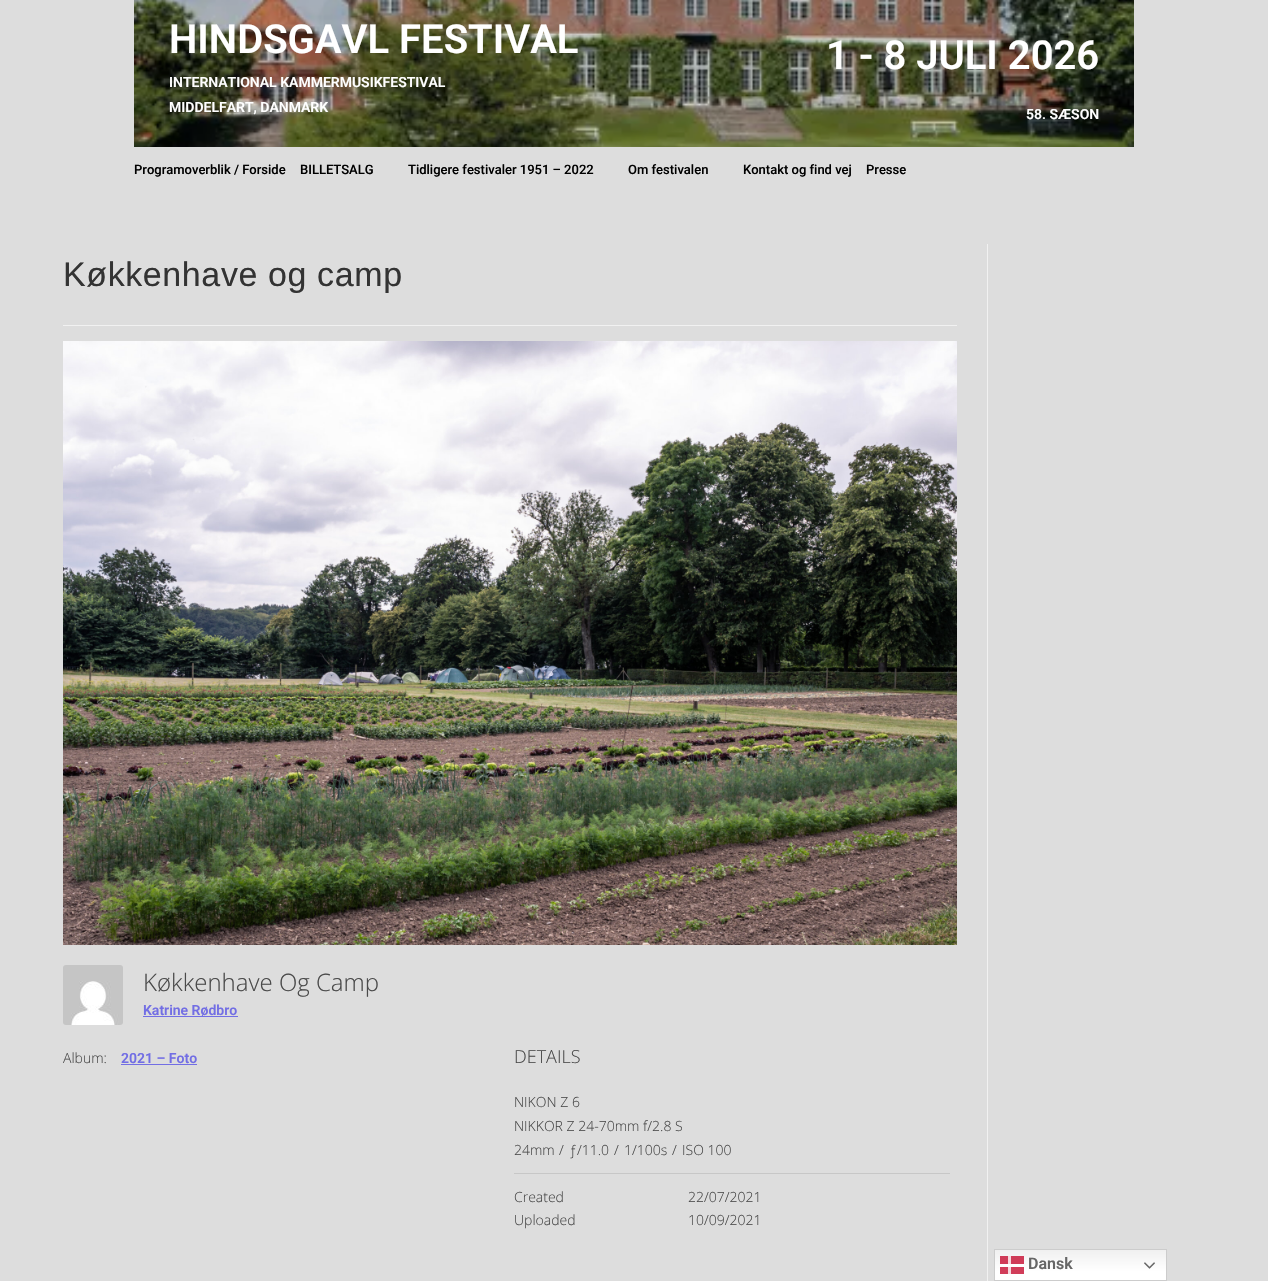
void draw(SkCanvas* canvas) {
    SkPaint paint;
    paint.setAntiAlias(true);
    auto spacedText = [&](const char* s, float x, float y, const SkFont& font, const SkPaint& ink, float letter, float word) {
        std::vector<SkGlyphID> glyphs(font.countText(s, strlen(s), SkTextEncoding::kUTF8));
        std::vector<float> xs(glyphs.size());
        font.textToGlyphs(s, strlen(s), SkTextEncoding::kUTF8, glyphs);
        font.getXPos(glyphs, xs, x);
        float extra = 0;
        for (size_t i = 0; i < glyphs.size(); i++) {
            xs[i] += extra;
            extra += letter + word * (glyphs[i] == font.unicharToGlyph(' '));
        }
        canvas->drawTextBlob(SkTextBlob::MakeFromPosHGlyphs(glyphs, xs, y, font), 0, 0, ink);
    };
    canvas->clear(0xFFDDDDDD);
    canvas->drawImageRect(SkImages::DeferredFromEncodedData(SkData::MakeFromFileName("img1.png")), SkRect::MakeXYWH(134, 0, 1000, 147), SkSamplingOptions());
    SkFont font1(fontMgr->matchFamilyStyle("Roboto", SkFontStyle(600, SkFontStyle::kNormal_Width, SkFontStyle::kUpright_Slant)), 40);
    font1.setSubpixel(true);
    paint.setColor(0xFFFFFFFF);
    canvas->drawString("HINDSGAVL FESTIVAL", 169, 53, font1, paint);
    SkFont font2(fontMgr->matchFamilyStyle("Roboto", SkFontStyle(600, SkFontStyle::kNormal_Width, SkFontStyle::kUpright_Slant)), 14);
    font2.setSubpixel(true);
    canvas->drawString("INTERNATIONAL KAMMERMUSIKFESTIVAL", 169, 87, font2, paint);
    canvas->drawString("MIDDELFART, DANMARK", 169, 112, font2, paint);
    canvas->drawString("1 - 8 JULI 2026", 826, 69, font1, paint);
    canvas->drawString("58. SÆSON", 1026, 119, font2, paint);
    SkFont font3(fontMgr->matchFamilyStyle("Roboto", SkFontStyle(500, SkFontStyle::kNormal_Width, SkFontStyle::kUpright_Slant)), 13);
    font3.setSubpixel(true);
    paint.setColor(0xFF000000);
    canvas->drawString("Programoverblik / Forside", 134, 174, font3, paint);
    canvas->drawString("BILLETSALG", 300, 174, font3, paint);
    canvas->drawString("Tidligere festivaler 1951 – 2022", 408, 174, font3, paint);
    canvas->drawString("Om festivalen", 628, 174, font3, paint);
    canvas->drawString("Kontakt og find vej", 743, 174, font3, paint);
    canvas->drawString("Presse", 866, 174, font3, paint);
    paint.setColor(0xFFF1F1F1);
    canvas->drawRect(SkRect::MakeXYWH(987, 244, 1, 1037), paint);
    canvas->drawRect(SkRect::MakeXYWH(63, 325, 894, 1), paint);
    SkFont font4(fontMgr->matchFamilyStyle("Liberation Sans", SkFontStyle::Normal()), 34);
    font4.setSubpixel(true);
    paint.setColor(0xFF333333);
    spacedText("Køkkenhave og camp", 63, 286, font4, paint, 0.6f, 0);
    canvas->drawImageRect(SkImages::DeferredFromEncodedData(SkData::MakeFromFileName("img2.png")), SkRect::MakeXYWH(63, 341, 894, 604), SkSamplingOptions());
    canvas->drawImageRect(SkImages::DeferredFromEncodedData(SkData::MakeFromFileName("img3.png")), SkRect::MakeXYWH(63, 965, 60, 60), SkSamplingOptions());
    SkFont font5(fontMgr->matchFamilyStyle("Open Sans", SkFontStyle(300, SkFontStyle::kNormal_Width, SkFontStyle::kUpright_Slant)), 24);
    font5.setSubpixel(true);
    paint.setColor(0xFF4A4A4A);
    canvas->drawString("Køkkenhave Og Camp", 143, 991, font5, paint);
    paint.setColor(0xFF726EE4);
    canvas->drawString("Katrine Rødbro", 143, 1015, font2, paint);
    canvas->drawRect(SkRect::MakeXYWH(143, 1016, 95, 1), paint);
    SkFont font6(fontMgr->matchFamilyStyle("Open Sans", SkFontStyle(300, SkFontStyle::kNormal_Width, SkFontStyle::kUpright_Slant)), 14);
    font6.setSubpixel(true);
    paint.setColor(0xFF4A4A4A);
    canvas->drawString("Album:", 63, 1063, font6, paint);
    paint.setColor(0xFF726EE4);
    canvas->drawString("2021 – Foto", 121, 1063, font2, paint);
    canvas->drawRect(SkRect::MakeXYWH(121, 1064, 76, 1), paint);
    SkFont font7(fontMgr->matchFamilyStyle("Open Sans", SkFontStyle(300, SkFontStyle::kNormal_Width, SkFontStyle::kUpright_Slant)), 18);
    font7.setSubpixel(true);
    paint.setColor(0xFF4A4A4A);
    canvas->drawString("DETAILS", 514, 1063, font7, paint);
    paint.setColor(0xFFC7C7C7);
    canvas->drawRect(SkRect::MakeXYWH(514, 1173, 436, 1), paint);
    paint.setColor(0xFF4A4A4A);
    canvas->drawString("NIKON Z 6", 514, 1107, font6, paint);
    canvas->drawString("NIKKOR Z 24-70mm f/2.8 S", 514, 1131, font6, paint);
    canvas->drawString("24mm", 514, 1155, font6, paint);
    canvas->drawString("/", 559, 1155, font6, paint);
    canvas->drawString("ƒ/11.0", 569, 1155, font6, paint);
    canvas->drawString("/", 614, 1155, font6, paint);
    canvas->drawString("1/100s", 624, 1155, font6, paint);
    canvas->drawString("/", 672, 1155, font6, paint);
    canvas->drawString("ISO 100", 682, 1155, font6, paint);
    canvas->drawString("Created", 514, 1202, font6, paint);
    canvas->drawString("22/07/2021", 688, 1202, font6, paint);
    canvas->drawString("Uploaded", 514, 1225, font6, paint);
    canvas->drawString("10/09/2021", 688, 1225, font6, paint);
    {
        const SkColor colors[] = {0xFFEFEFEF, 0xFFFFFFFF};
        const float stops[] = {0, 0.7f};
        const SkPoint ends[] = {{1081, 1249}, {1081, 1281}};
        paint.setShader(SkGradientShader::MakeLinear(ends, colors, stops, 2, SkTileMode::kClamp));
        paint.setAlpha(255);
    }
    canvas->drawRect(SkRect::MakeXYWH(995, 1250, 171, 30), paint);
    {
        const SkColor colors[] = {0xFFCE3956, 0xFFD13D59};
        const float stops[] = {0, 0.7f};
        const SkPoint ends[] = {{1081, 1249}, {1081, 1281}};
        paint.setShader(SkGradientShader::MakeLinear(ends, colors, stops, 2, SkTileMode::kClamp));
        paint.setAlpha(255);
    }
    canvas->drawRect(SkRect::MakeXYWH(1000, 1256, 24, 18), paint);
    paint.setStyle(SkPaint::kStroke_Style);
    paint.setStrokeWidth(1);
    paint.setShader(nullptr);
    paint.setColor(0xFFCCCCCC);
    canvas->drawRect(SkRect::MakeXYWH(994.5f, 1249.5f, 172, 31), paint);
    paint.setStyle(SkPaint::kFill_Style);
    paint.setColor(0xFFF6D8DE);
    canvas->drawRect(SkRect::MakeXYWH(1008, 1256, 3, 18), paint);
    SkFont font8(fontMgr->matchFamilyStyle("Roboto", SkFontStyle(600, SkFontStyle::kNormal_Width, SkFontStyle::kUpright_Slant)), 16);
    font8.setSubpixel(true);
    paint.setColor(0xFF666666);
    canvas->drawString("Dansk", 1028, 1269, font8, paint);
    canvas->drawImageRect(SkImages::DeferredFromEncodedData(SkData::MakeFromFileName("img4.png")), SkRect::MakeXYWH(1144, 1262, 11, 7), SkSamplingOptions());
    paint.setColor(0xFFFEFEFE);
    canvas->drawRect(SkRect::MakeXYWH(1000, 1264, 24, 3), paint);
}
